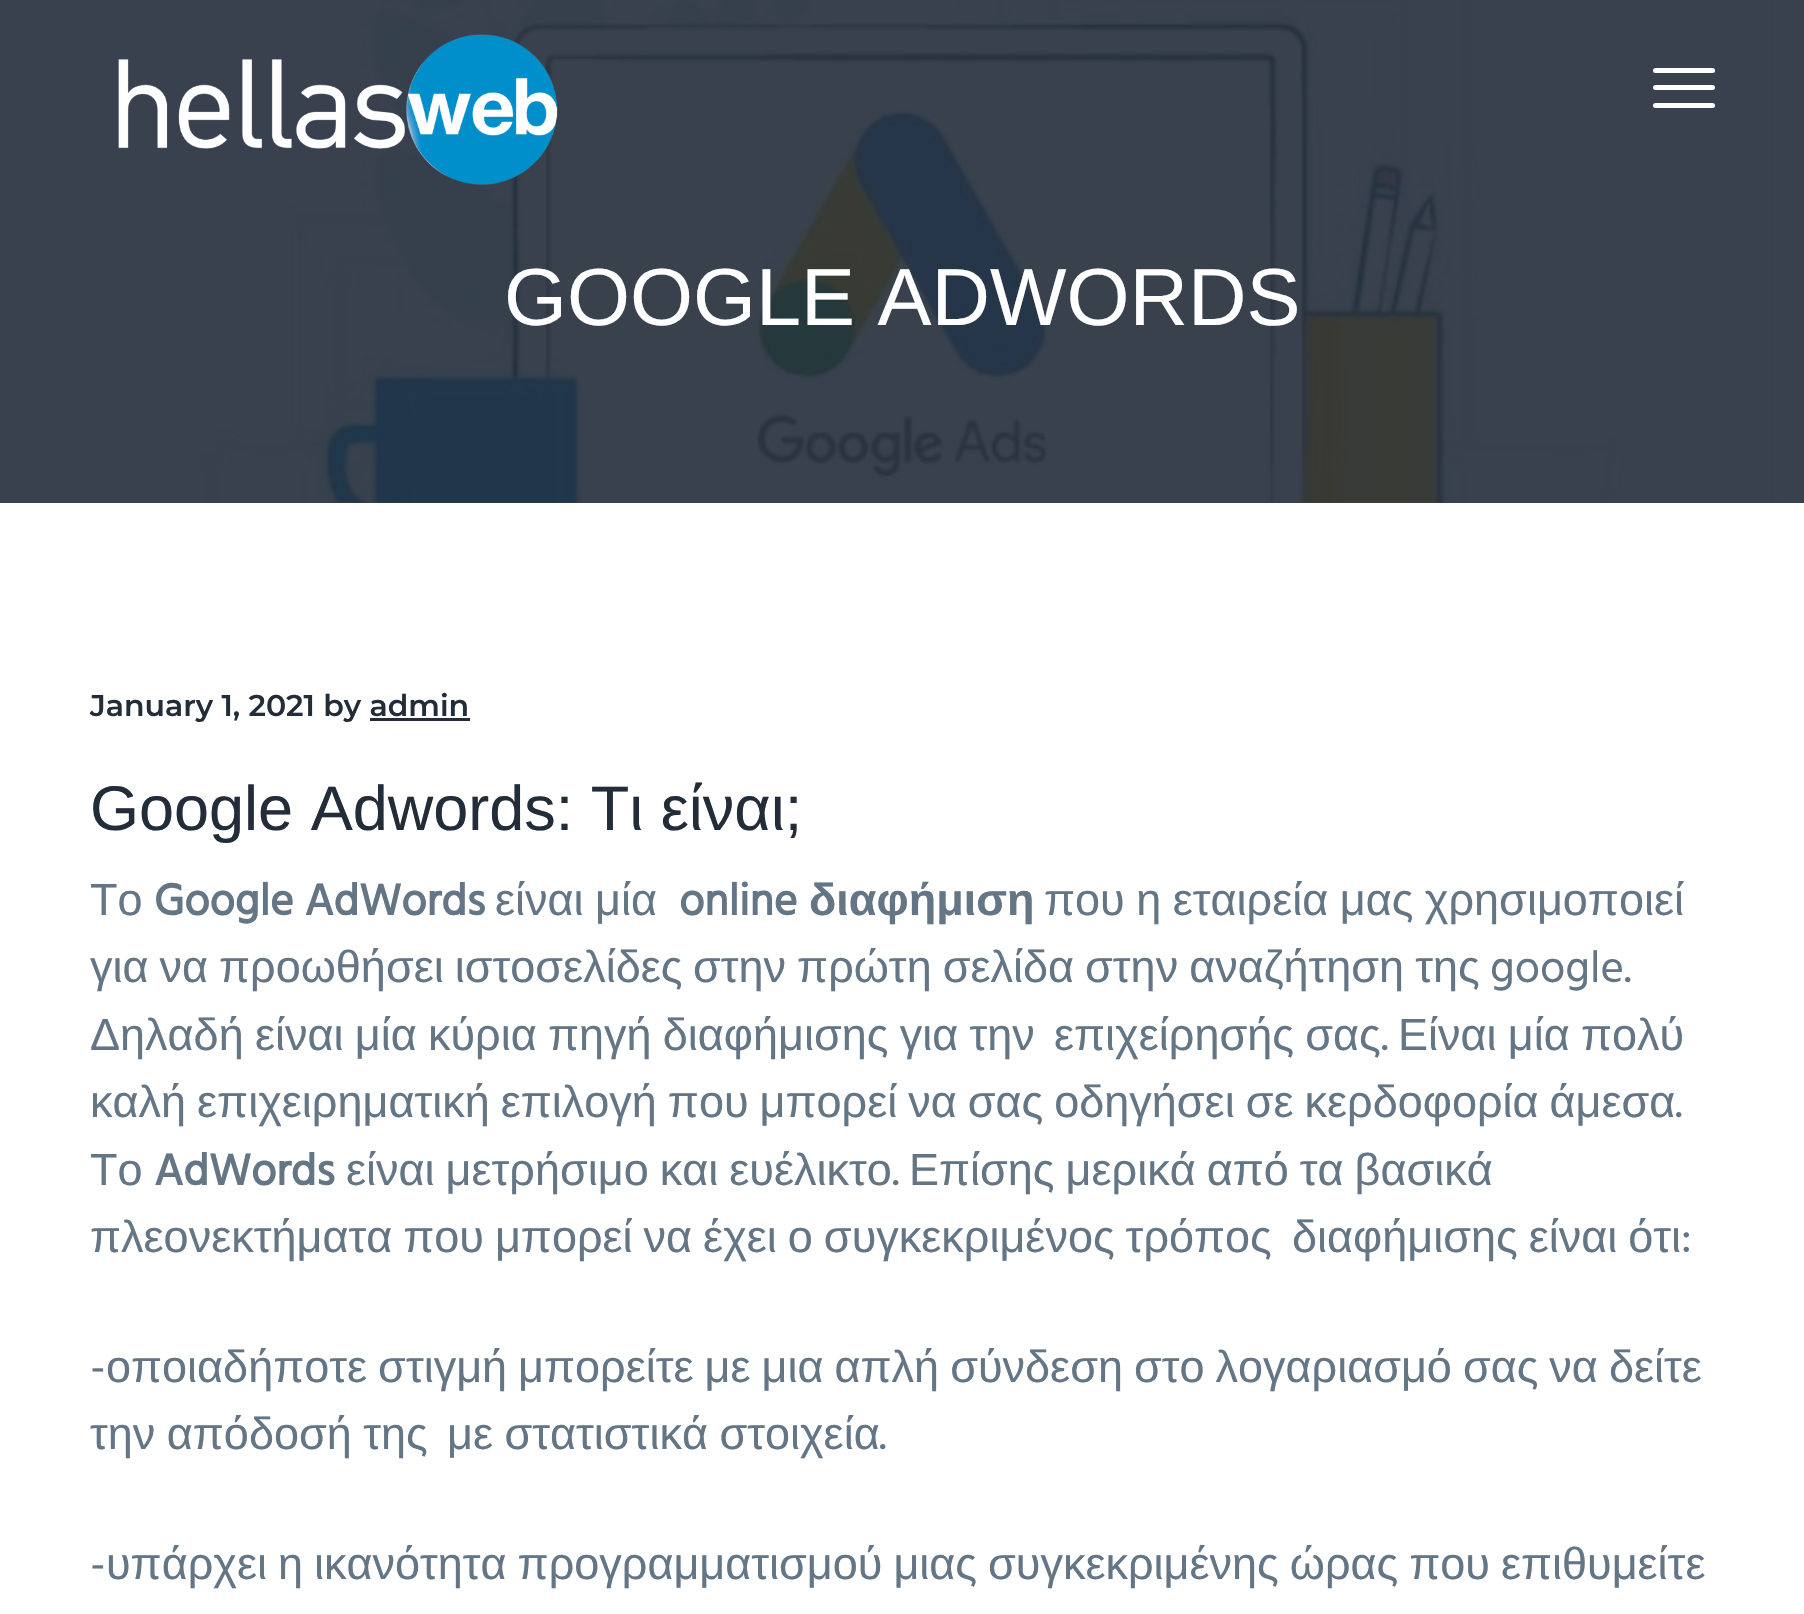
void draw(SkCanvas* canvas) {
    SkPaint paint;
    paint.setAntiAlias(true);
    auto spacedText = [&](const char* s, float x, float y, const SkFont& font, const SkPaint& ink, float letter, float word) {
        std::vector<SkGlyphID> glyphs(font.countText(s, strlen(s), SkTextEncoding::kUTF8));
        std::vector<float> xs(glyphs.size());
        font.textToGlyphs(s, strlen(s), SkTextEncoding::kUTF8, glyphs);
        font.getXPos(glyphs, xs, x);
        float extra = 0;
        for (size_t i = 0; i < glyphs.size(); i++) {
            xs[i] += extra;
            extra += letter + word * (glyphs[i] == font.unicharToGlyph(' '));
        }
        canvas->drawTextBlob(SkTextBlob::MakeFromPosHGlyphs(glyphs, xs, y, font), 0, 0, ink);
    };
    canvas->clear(0xFFFFFFFF);
    paint.setColor(0xFF39414D);
    canvas->drawRect(SkRect::MakeXYWH(0, 0, 1804, 503), paint);
    canvas->drawImageRect(SkImages::DeferredFromEncodedData(SkData::MakeFromFileName("img2.png")), SkRect::MakeXYWH(0, 0, 1780, 503), SkSamplingOptions());
    canvas->drawImageRect(SkImages::DeferredFromEncodedData(SkData::MakeFromFileName("img1.png")), SkRect::MakeXYWH(118, 34, 440, 151), SkSamplingOptions());
    paint.setColor(0xFFFFFFFF);
    canvas->drawRoundRect(SkRect::MakeXYWH(1653, 85, 62, 5), 2.5f, 2.5f, paint);
    canvas->drawRoundRect(SkRect::MakeXYWH(1653, 68, 62, 5), 2.5f, 2.5f, paint);
    canvas->drawRoundRect(SkRect::MakeXYWH(1653, 103, 62, 5), 2.5f, 2.5f, paint);
    SkFont font1(fontMgr->matchFamilyStyle("Liberation Sans", SkFontStyle::Normal()), 81);
    font1.setSubpixel(true);
    canvas->drawString("GOOGLE ADWORDS", 504, 325, font1, paint);
    SkFont font2(fontMgr->matchFamilyStyle("Montserrat", SkFontStyle(100, SkFontStyle::kNormal_Width, SkFontStyle::kUpright_Slant)), 30);
    font2.setSubpixel(true);
    paint.setColor(0xFF232C39);
    canvas->drawString("January 1, 2021 by admin", 90, 716, font2, paint);
    canvas->drawRect(SkRect::MakeXYWH(370, 718, 100, 3), paint);
    SkFont font3(fontMgr->matchFamilyStyle("Liberation Sans", SkFontStyle::Normal()), 63);
    font3.setSubpixel(true);
    canvas->drawString("Google Adwords: Τι είναι;", 90, 830, font3, paint);
    SkFont font4(fontMgr->matchFamilyStyle("Liberation Sans", SkFontStyle::Normal()), 45);
    font4.setSubpixel(true);
    paint.setColor(0xFF647585);
    canvas->drawString("Το", 90, 915, font4, paint);
    SkFont font5(fontMgr->matchFamilyStyle("Hind", SkFontStyle::Bold()), 45);
    font5.setSubpixel(true);
    canvas->drawString("Google AdWords", 154, 915, font5, paint);
    spacedText("είναι μία", 495, 915, font4, paint, 0, -1);
    canvas->drawString("online", 679, 915, font5, paint);
    SkFont font6(fontMgr->matchFamilyStyle("Liberation Sans", SkFontStyle::Bold()), 45);
    font6.setSubpixel(true);
    canvas->drawString("διαφήμιση", 809, 915, font6, paint);
    spacedText("που η εταιρεία μας χρησιμοποιεί", 1044, 915, font4, paint, 0, -1);
    spacedText("για να προωθήσει ιστοσελίδες", 90, 982, font4, paint, 0, -1.5f);
    spacedText("στην πρώτη σελίδα στην αναζήτηση της", 693, 982, font4, paint, 0, -1.5f);
    SkFont font7(fontMgr->matchFamilyStyle("Hind", SkFontStyle::Normal()), 45);
    font7.setSubpixel(true);
    canvas->drawString("google.", 1490, 982, font7, paint);
    spacedText("Δηλαδή είναι μία κύρια πηγή διαφήμισης για την", 90, 1050, font4, paint, 0, -1.25f);
    spacedText("επιχείρησής σας", 1054, 1050, font4, paint, 0, -1.25f);
    canvas->drawString(".", 1381, 1050, font7, paint);
    spacedText("Είναι μία πολύ", 1398, 1050, font4, paint, 0, -1.25f);
    spacedText("καλή επιχειρηματική επιλογή που μπορεί να σας οδηγήσει σε κερδοφορία άμεσα", 90, 1117, font4, paint, 0, -1.5f);
    canvas->drawString(".", 1675, 1117, font7, paint);
    canvas->drawString("Το", 90, 1185, font4, paint);
    canvas->drawString("AdWords", 154, 1185, font5, paint);
    spacedText("είναι μετρήσιμο και ευέλικτο", 346, 1185, font4, paint, 0, -1.5f);
    canvas->drawString(".", 892, 1185, font7, paint);
    spacedText("Επίσης μερικά από τα βασικά", 909, 1185, font4, paint, 0, -1.5f);
    spacedText("πλεονεκτήματα που μπορεί να έχει ο συγκεκριμένος τρόπος", 90, 1252, font4, paint, 0, -1.5f);
    spacedText("διαφήμισης είναι ότι", 1292, 1252, font4, paint, 0, -1.5f);
    canvas->drawString(":", 1681, 1252, font7, paint);
    canvas->drawString("-", 90, 1382, font7, paint);
    spacedText("οποιαδήποτε στιγμή μπορείτε με μια απλή σύνδεση στο λογαριασμό σας να δείτε", 106, 1382, font4, paint, 0, -1.5f);
    spacedText("την απόδοσή της", 90, 1449, font4, paint, 0, -1);
    spacedText("με στατιστικά στοιχεία", 447, 1449, font4, paint, 0, -1);
    canvas->drawString(".", 879, 1449, font7, paint);
    canvas->drawString("-", 90, 1579, font7, paint);
    spacedText("υπάρχει η ικανότητα προγραμματισμού μιας συγκεκριμένης ώρας που επιθυμείτε", 106, 1579, font4, paint, 0, -1.5f);
}
